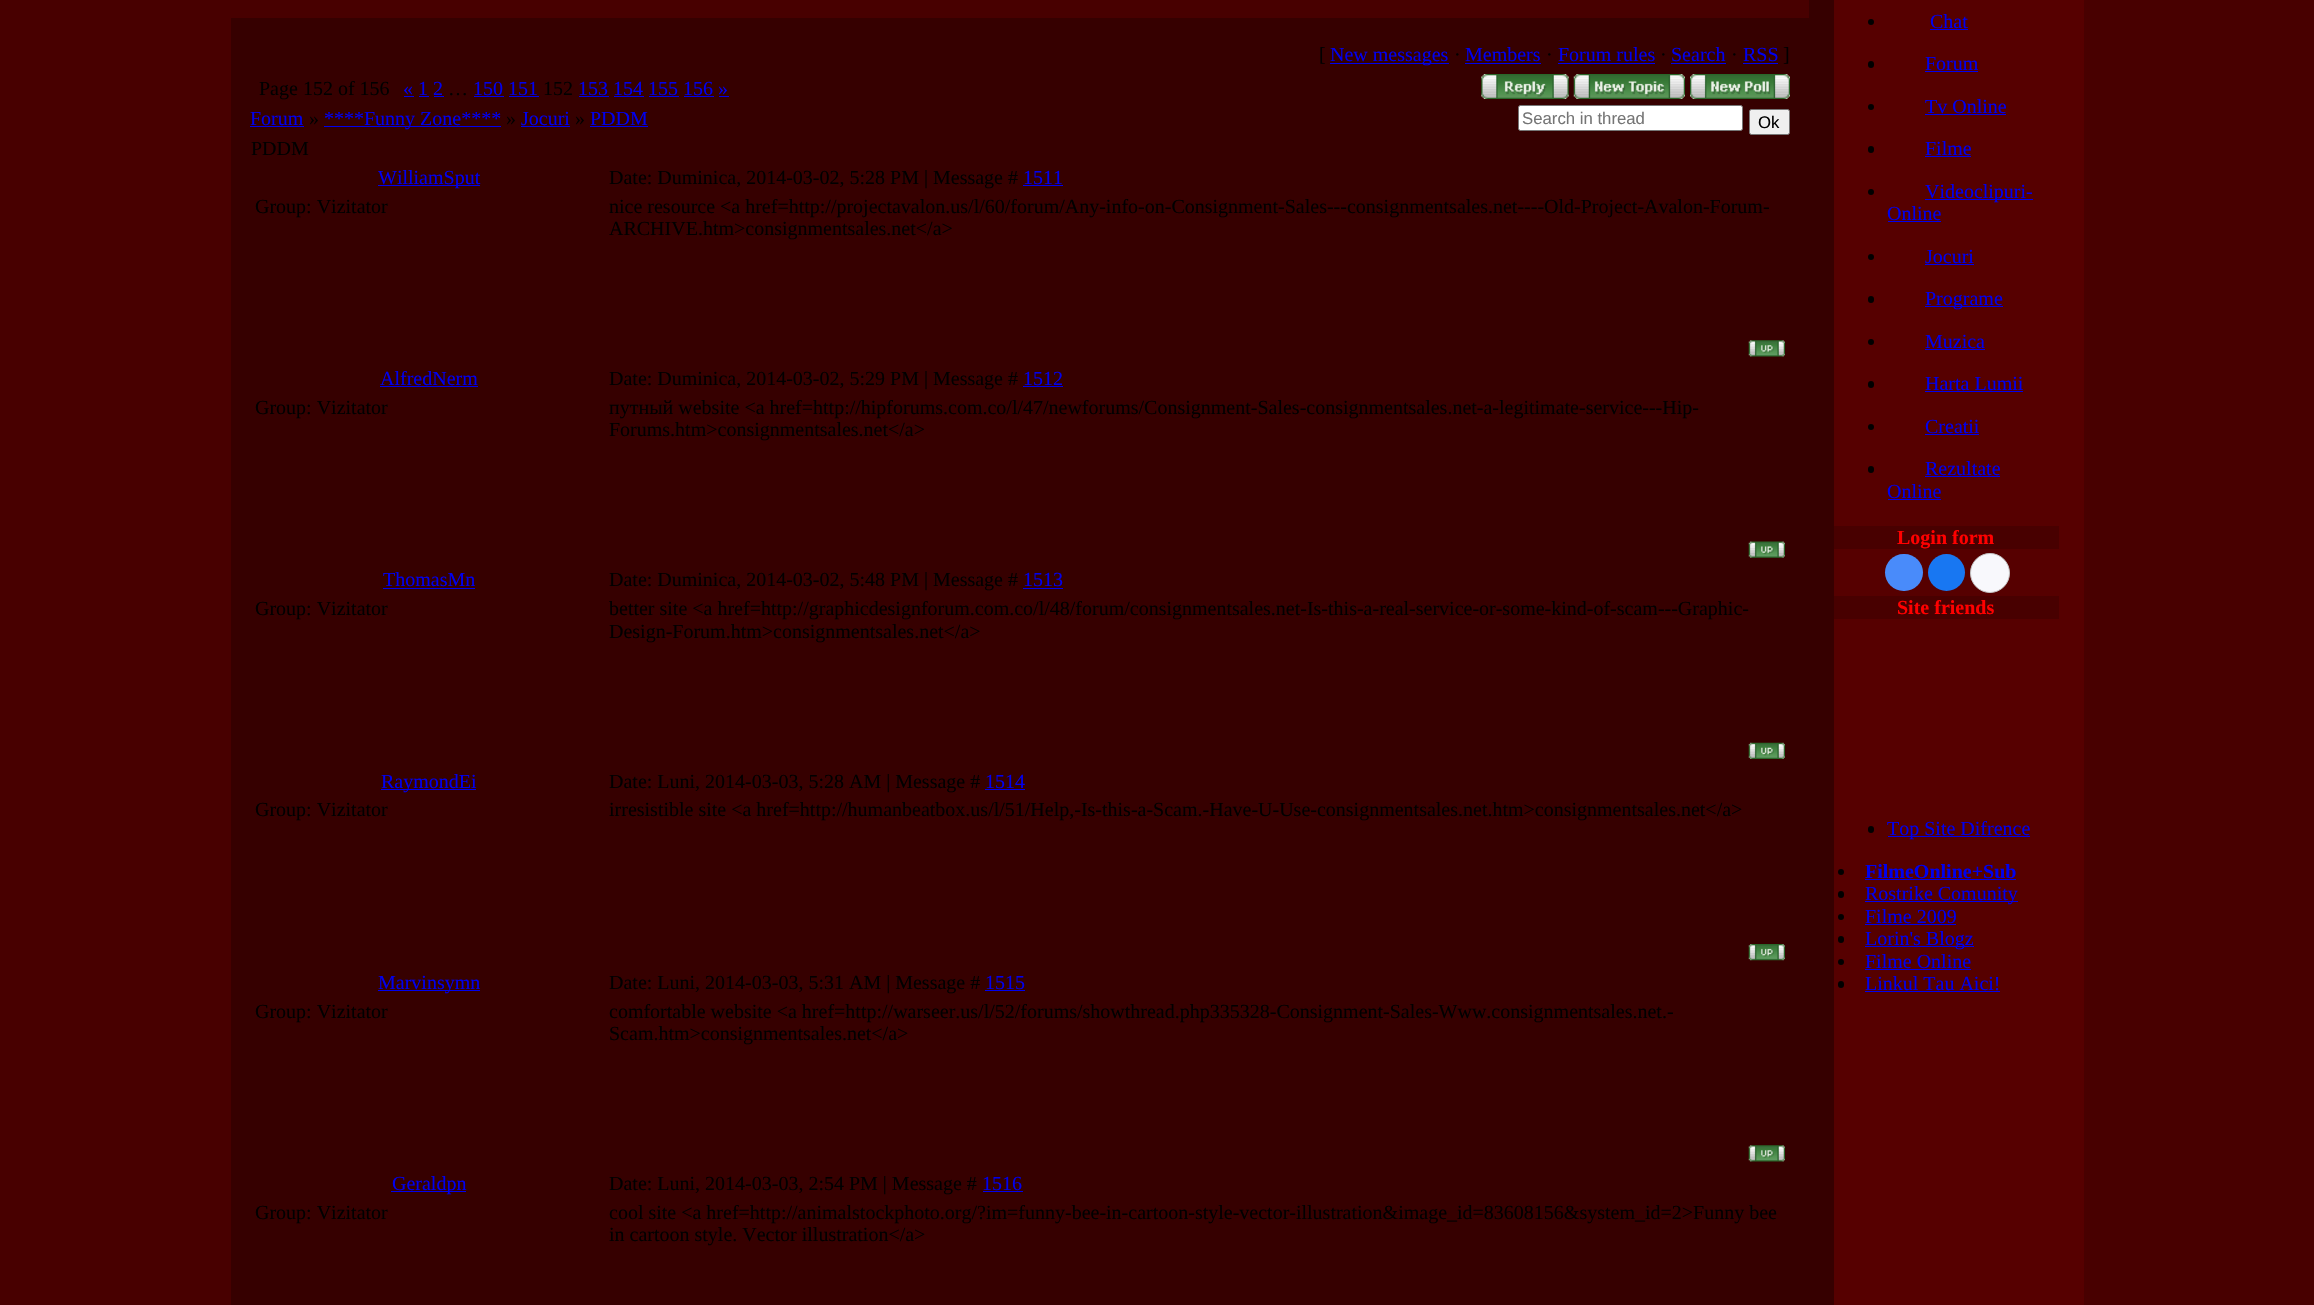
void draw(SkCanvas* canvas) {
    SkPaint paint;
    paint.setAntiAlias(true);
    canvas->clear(0xFF480000);
    paint.setColor(0xFF360000);
    canvas->drawRect(SkRect::MakeXYWH(231, 18, 1578, 1287), paint);
    SkFont font1(fontMgr->matchFamilyStyle("Liberation Serif", SkFontStyle::Normal()), 20);
    font1.setSubpixel(true);
    paint.setColor(0xFF000000);
    canvas->drawString("[", 1319, 61, font1, paint);
    paint.setColor(0xFF0000EE);
    canvas->drawRect(SkRect::MakeXYWH(1330, 63, 119, 1), paint);
    canvas->drawString("New messages", 1330, 61, font1, paint);
    paint.setColor(0xFF000000);
    canvas->drawString("·", 1454, 61, font1, paint);
    paint.setColor(0xFF0000EE);
    canvas->drawString("Members", 1465, 61, font1, paint);
    canvas->drawRect(SkRect::MakeXYWH(1465, 63, 76, 1), paint);
    paint.setColor(0xFF000000);
    canvas->drawString("·", 1546, 61, font1, paint);
    paint.setColor(0xFF0000EE);
    canvas->drawString("Forum rules", 1558, 61, font1, paint);
    canvas->drawRect(SkRect::MakeXYWH(1558, 63, 97, 1), paint);
    paint.setColor(0xFF000000);
    canvas->drawString("·", 1660, 61, font1, paint);
    paint.setColor(0xFF0000EE);
    canvas->drawString("Search", 1671, 61, font1, paint);
    canvas->drawRect(SkRect::MakeXYWH(1671, 63, 55, 1), paint);
    paint.setColor(0xFF000000);
    canvas->drawString("·", 1731, 61, font1, paint);
    paint.setColor(0xFF0000EE);
    canvas->drawString("RSS", 1743, 61, font1, paint);
    canvas->drawRect(SkRect::MakeXYWH(1743, 63, 35, 1), paint);
    paint.setColor(0xFF000000);
    canvas->drawString("]", 1783, 61, font1, paint);
    canvas->drawString("Page 152 of 156", 259, 95, font1, paint);
    paint.setColor(0xFF0000EE);
    canvas->drawString("« 1 2", 403, 95, font1, paint);
    canvas->drawRect(SkRect::MakeXYWH(404, 96, 10, 1), paint);
    paint.setColor(0xFF000000);
    canvas->drawString("…", 448, 95, font1, paint);
    paint.setColor(0xFF0000EE);
    canvas->drawString("150 151", 473, 95, font1, paint);
    canvas->drawRect(SkRect::MakeXYWH(474, 96, 30, 1), paint);
    paint.setColor(0xFF000000);
    canvas->drawString("152", 543, 95, font1, paint);
    paint.setColor(0xFF0000EE);
    canvas->drawString("153 154 155 156 »", 578, 95, font1, paint);
    canvas->drawRect(SkRect::MakeXYWH(579, 96, 30, 1), paint);
    canvas->drawRect(SkRect::MakeXYWH(419, 96, 10, 1), paint);
    canvas->drawRect(SkRect::MakeXYWH(434, 96, 10, 1), paint);
    canvas->drawRect(SkRect::MakeXYWH(509, 96, 30, 1), paint);
    canvas->drawRect(SkRect::MakeXYWH(614, 96, 30, 1), paint);
    canvas->drawRect(SkRect::MakeXYWH(649, 96, 30, 1), paint);
    canvas->drawRect(SkRect::MakeXYWH(684, 96, 30, 1), paint);
    canvas->drawRect(SkRect::MakeXYWH(719, 96, 10, 1), paint);
    canvas->drawImageRect(SkImages::DeferredFromEncodedData(SkData::MakeFromFileName("img1.png")), SkRect::MakeXYWH(1481, 74, 88, 25), SkSamplingOptions());
    canvas->drawImageRect(SkImages::DeferredFromEncodedData(SkData::MakeFromFileName("img2.png")), SkRect::MakeXYWH(1573, 74, 112, 25), SkSamplingOptions());
    canvas->drawImageRect(SkImages::DeferredFromEncodedData(SkData::MakeFromFileName("img3.png")), SkRect::MakeXYWH(1690, 74, 100, 25), SkSamplingOptions());
    canvas->drawString("Forum", 250, 125, font1, paint);
    canvas->drawRect(SkRect::MakeXYWH(250, 126, 54, 1), paint);
    paint.setColor(0xFF000000);
    canvas->drawString("»", 309, 125, font1, paint);
    paint.setColor(0xFF0000EE);
    canvas->drawRect(SkRect::MakeXYWH(324, 126, 177, 1), paint);
    canvas->drawString("****Funny Zone****", 324, 125, font1, paint);
    paint.setColor(0xFF000000);
    canvas->drawString("»", 506, 125, font1, paint);
    paint.setColor(0xFF0000EE);
    canvas->drawString("Jocuri", 521, 125, font1, paint);
    canvas->drawRect(SkRect::MakeXYWH(521, 126, 49, 1), paint);
    paint.setColor(0xFF000000);
    canvas->drawString("»", 575, 125, font1, paint);
    paint.setColor(0xFF0000EE);
    canvas->drawString("PDDM", 590, 125, font1, paint);
    canvas->drawRect(SkRect::MakeXYWH(590, 126, 58, 1), paint);
    paint.setColor(0xFFFFFFFF);
    canvas->drawRoundRect(SkRect::MakeXYWH(1518.5f, 105.5f, 224, 25), 2, 2, paint);
    paint.setStyle(SkPaint::kStroke_Style);
    paint.setStrokeWidth(1);
    paint.setColor(0xFF767676);
    canvas->drawRoundRect(SkRect::MakeXYWH(1518.5f, 105.5f, 224, 25), 2, 2, paint);
    SkFont font2(fontMgr->matchFamilyStyle("Liberation Sans", SkFontStyle::Normal()), 16.75f);
    font2.setSubpixel(true);
    paint.setStyle(SkPaint::kFill_Style);
    paint.setColor(0xFF757575);
    canvas->drawString("Search in thread", 1522, 124, font2, paint);
    paint.setColor(0xFFEFEFEF);
    canvas->drawRoundRect(SkRect::MakeXYWH(1749.5f, 109.5f, 40, 25), 2, 2, paint);
    paint.setStyle(SkPaint::kStroke_Style);
    paint.setColor(0xFF767676);
    canvas->drawRoundRect(SkRect::MakeXYWH(1749.5f, 109.5f, 40, 25), 2, 2, paint);
    paint.setStyle(SkPaint::kFill_Style);
    paint.setColor(0xFF000000);
    canvas->drawString("Ok", 1758, 128, font2, paint);
    canvas->drawString("PDDM", 251, 155, font1, paint);
    paint.setColor(0xFF0000EE);
    canvas->drawRect(SkRect::MakeXYWH(378, 185, 102, 1), paint);
    canvas->drawString("WilliamSput", 378, 184, font1, paint);
    paint.setColor(0xFF000000);
    canvas->drawString("Date: Duminica, 2014-03-02, 5:28 PM | Message #", 609, 184, font1, paint);
    paint.setColor(0xFF0000EE);
    canvas->drawString("1511", 1023, 184, font1, paint);
    canvas->drawRect(SkRect::MakeXYWH(1023, 185, 40, 1), paint);
    paint.setColor(0xFF000000);
    canvas->drawString("Group: Vizitator", 255, 213, font1, paint);
    canvas->drawString("nice resource <a href=http://projectavalon.us/l/60/forum/Any-info-on-Consignment-Sales---consignmentsales.net----Old-Project-Avalon-Forum-", 609, 213, font1, paint);
    canvas->drawString("ARCHIVE.htm>consignmentsales.net</a>", 609, 235, font1, paint);
    canvas->drawImageRect(SkImages::DeferredFromEncodedData(SkData::MakeFromFileName("img4.png")), SkRect::MakeXYWH(1748, 340, 37, 17), SkSamplingOptions());
    paint.setColor(0xFF0000EE);
    canvas->drawString("AlfredNerm", 380, 385, font1, paint);
    canvas->drawRect(SkRect::MakeXYWH(380, 386, 98, 1), paint);
    paint.setColor(0xFF000000);
    canvas->drawString("Date: Duminica, 2014-03-02, 5:29 PM | Message #", 609, 385, font1, paint);
    paint.setColor(0xFF0000EE);
    canvas->drawString("1512", 1023, 385, font1, paint);
    canvas->drawRect(SkRect::MakeXYWH(1023, 386, 40, 1), paint);
    paint.setColor(0xFF000000);
    canvas->drawString("Group: Vizitator", 255, 414, font1, paint);
    canvas->drawString("путный website <a href=http://hipforums.com.co/l/47/newforums/Consignment-Sales-consignmentsales.net-a-legitimate-service---Hip-", 609, 414, font1, paint);
    canvas->drawString("Forums.htm>consignmentsales.net</a>", 609, 436, font1, paint);
    canvas->drawImageRect(SkImages::DeferredFromEncodedData(SkData::MakeFromFileName("img5.png")), SkRect::MakeXYWH(1748, 541, 37, 17), SkSamplingOptions());
    paint.setColor(0xFF0000EE);
    canvas->drawString("ThomasMn", 383, 586, font1, paint);
    canvas->drawRect(SkRect::MakeXYWH(383, 588, 92, 1), paint);
    paint.setColor(0xFF000000);
    canvas->drawString("Date: Duminica, 2014-03-02, 5:48 PM | Message #", 609, 586, font1, paint);
    paint.setColor(0xFF0000EE);
    canvas->drawString("1513", 1023, 586, font1, paint);
    canvas->drawRect(SkRect::MakeXYWH(1023, 588, 40, 1), paint);
    paint.setColor(0xFF000000);
    canvas->drawString("Group: Vizitator", 255, 615, font1, paint);
    canvas->drawString("better site <a href=http://graphicdesignforum.com.co/l/48/forum/consignmentsales.net-Is-this-a-real-service-or-some-kind-of-scam---Graphic-", 609, 615, font1, paint);
    canvas->drawString("Design-Forum.htm>consignmentsales.net</a>", 609, 638, font1, paint);
    canvas->drawImageRect(SkImages::DeferredFromEncodedData(SkData::MakeFromFileName("img6.png")), SkRect::MakeXYWH(1748, 742, 37, 17), SkSamplingOptions());
    paint.setColor(0xFF0000EE);
    canvas->drawRect(SkRect::MakeXYWH(381, 789, 95, 1), paint);
    canvas->drawString("RaymondEi", 381, 788, font1, paint);
    paint.setColor(0xFF000000);
    canvas->drawString("Date: Luni, 2014-03-03, 5:28 AM | Message #", 609, 788, font1, paint);
    paint.setColor(0xFF0000EE);
    canvas->drawString("1514", 985, 788, font1, paint);
    canvas->drawRect(SkRect::MakeXYWH(985, 789, 40, 1), paint);
    paint.setColor(0xFF000000);
    canvas->drawString("Group: Vizitator", 255, 816, font1, paint);
    canvas->drawString("irresistible site <a href=http://humanbeatbox.us/l/51/Help,-Is-this-a-Scam.-Have-U-Use-consignmentsales.net.htm>consignmentsales.net</a>", 609, 816, font1, paint);
    canvas->drawImageRect(SkImages::DeferredFromEncodedData(SkData::MakeFromFileName("img7.png")), SkRect::MakeXYWH(1748, 944, 37, 17), SkSamplingOptions());
    paint.setColor(0xFF0000EE);
    canvas->drawRect(SkRect::MakeXYWH(378, 990, 102, 1), paint);
    canvas->drawString("Marvinsymn", 378, 989, font1, paint);
    paint.setColor(0xFF000000);
    canvas->drawString("Date: Luni, 2014-03-03, 5:31 AM | Message #", 609, 989, font1, paint);
    paint.setColor(0xFF0000EE);
    canvas->drawString("1515", 985, 989, font1, paint);
    canvas->drawRect(SkRect::MakeXYWH(985, 990, 40, 1), paint);
    paint.setColor(0xFF000000);
    canvas->drawString("Group: Vizitator", 255, 1018, font1, paint);
    canvas->drawString("comfortable website <a href=http://warseer.us/l/52/forums/showthread.php335328-Consignment-Sales-Www.consignmentsales.net.-", 609, 1018, font1, paint);
    canvas->drawString("Scam.htm>consignmentsales.net</a>", 609, 1040, font1, paint);
    canvas->drawImageRect(SkImages::DeferredFromEncodedData(SkData::MakeFromFileName("img4.png")), SkRect::MakeXYWH(1748, 1145, 37, 17), SkSamplingOptions());
    paint.setColor(0xFF0000EE);
    canvas->drawRect(SkRect::MakeXYWH(391, 1191, 75, 1), paint);
    canvas->drawString("Geraldpn", 392, 1190, font1, paint);
    paint.setColor(0xFF000000);
    canvas->drawString("Date: Luni, 2014-03-03, 2:54 PM | Message #", 609, 1190, font1, paint);
    paint.setColor(0xFF0000EE);
    canvas->drawString("1516", 982, 1190, font1, paint);
    canvas->drawRect(SkRect::MakeXYWH(983, 1191, 40, 1), paint);
    paint.setColor(0xFF000000);
    canvas->drawString("Group: Vizitator", 255, 1219, font1, paint);
    canvas->drawString("cool site <a href=http://animalstockphoto.org/?im=funny-bee-in-cartoon-style-vector-illustration&image_id=83608156&system_id=2>Funny bee", 609, 1219, font1, paint);
    canvas->drawString("in cartoon style. Vector illustration</a>", 609, 1241, font1, paint);
    paint.setColor(0xFF560000);
    canvas->drawRect(SkRect::MakeXYWH(1834, 0, 250, 1305), paint);
    paint.setColor(0xFF360000);
    canvas->drawRect(SkRect::MakeXYWH(1809, 0, 25, 1305), paint);
    paint.setColor(0xFF000000);
    canvas->drawCircle(1871, 22, 3, paint);
    paint.setColor(0xFF0000EE);
    canvas->drawString("Chat", 1930, 28, font1, paint);
    canvas->drawRect(SkRect::MakeXYWH(1930, 29, 38, 1), paint);
    paint.setColor(0xFF000000);
    canvas->drawRoundRect(SkRect::MakeXYWH(1868, 61, 6, 7), 3, 3, paint);
    paint.setColor(0xFF0000EE);
    canvas->drawString("Forum", 1925, 70, font1, paint);
    canvas->drawRect(SkRect::MakeXYWH(1925, 71, 53, 1), paint);
    paint.setColor(0xFF000000);
    canvas->drawCircle(1871, 107, 3, paint);
    paint.setColor(0xFF0000EE);
    canvas->drawString("Tv Online", 1925, 113, font1, paint);
    canvas->drawRect(SkRect::MakeXYWH(1925, 114, 81, 1), paint);
    paint.setColor(0xFF000000);
    canvas->drawRoundRect(SkRect::MakeXYWH(1868, 146, 6, 7), 3, 3, paint);
    paint.setColor(0xFF0000EE);
    canvas->drawString("Filme", 1925, 155, font1, paint);
    canvas->drawRect(SkRect::MakeXYWH(1925, 156, 46, 1), paint);
    paint.setColor(0xFF000000);
    canvas->drawCircle(1871, 192, 3, paint);
    paint.setColor(0xFF0000EE);
    canvas->drawRect(SkRect::MakeXYWH(1925, 199, 108, 1), paint);
    canvas->drawString("Videoclipuri-", 1925, 198, font1, paint);
    canvas->drawString("Online", 1887, 220, font1, paint);
    canvas->drawRect(SkRect::MakeXYWH(1888, 221, 53, 1), paint);
    paint.setColor(0xFF000000);
    canvas->drawCircle(1871, 257, 3, paint);
    paint.setColor(0xFF0000EE);
    canvas->drawString("Jocuri", 1925, 263, font1, paint);
    canvas->drawRect(SkRect::MakeXYWH(1925, 264, 49, 1), paint);
    paint.setColor(0xFF000000);
    canvas->drawRoundRect(SkRect::MakeXYWH(1868, 296, 6, 7), 3, 3, paint);
    paint.setColor(0xFF0000EE);
    canvas->drawRect(SkRect::MakeXYWH(1925, 306, 78, 1), paint);
    canvas->drawString("Programe", 1925, 305, font1, paint);
    paint.setColor(0xFF000000);
    canvas->drawCircle(1871, 342, 3, paint);
    paint.setColor(0xFF0000EE);
    canvas->drawString("Muzica", 1925, 348, font1, paint);
    canvas->drawRect(SkRect::MakeXYWH(1925, 349, 60, 1), paint);
    paint.setColor(0xFF000000);
    canvas->drawRoundRect(SkRect::MakeXYWH(1868, 381, 6, 7), 3, 3, paint);
    paint.setColor(0xFF0000EE);
    canvas->drawString("Harta Lumii", 1925, 390, font1, paint);
    canvas->drawRect(SkRect::MakeXYWH(1925, 391, 98, 1), paint);
    paint.setColor(0xFF000000);
    canvas->drawCircle(1871, 427, 3, paint);
    paint.setColor(0xFF0000EE);
    canvas->drawString("Creatii", 1925, 433, font1, paint);
    canvas->drawRect(SkRect::MakeXYWH(1925, 434, 54, 1), paint);
    paint.setColor(0xFF000000);
    canvas->drawRoundRect(SkRect::MakeXYWH(1868, 466, 6, 7), 3, 3, paint);
    paint.setColor(0xFF0000EE);
    canvas->drawString("Rezultate", 1925, 475, font1, paint);
    canvas->drawRect(SkRect::MakeXYWH(1925, 476, 75, 1), paint);
    canvas->drawString("Online", 1887, 498, font1, paint);
    canvas->drawRect(SkRect::MakeXYWH(1888, 499, 53, 1), paint);
    paint.setColor(0xFF480000);
    canvas->drawRect(SkRect::MakeXYWH(1834, 526, 225, 23), paint);
    SkFont font3(fontMgr->matchFamilyStyle("Liberation Serif", SkFontStyle::Bold()), 20);
    font3.setSubpixel(true);
    paint.setColor(0xFFFF0000);
    canvas->drawString("Login form", 1897, 544, font3, paint);
    paint.setColor(0xFF498BFA);
    canvas->drawRoundRect(SkRect::MakeXYWH(1885, 554, 38, 37), 18.5f, 18.5f, paint);
    paint.setColor(0xFF1877F2);
    canvas->drawCircle(1946.5f, 572.5f, 18.5f, paint);
    paint.setColor(0xFFF8F8FC);
    canvas->drawCircle(1990, 573, 19.5f, paint);
    paint.setStyle(SkPaint::kStroke_Style);
    paint.setColor(0xFFC4C4C4);
    canvas->drawCircle(1990, 573, 19.5f, paint);
    paint.setStyle(SkPaint::kFill_Style);
    paint.setColor(0xFF480000);
    canvas->drawRect(SkRect::MakeXYWH(1834, 596, 225, 23), paint);
    paint.setColor(0xFFFF0000);
    canvas->drawString("Site friends", 1897, 614, font3, paint);
    paint.setColor(0xFF000000);
    canvas->drawRoundRect(SkRect::MakeXYWH(1868, 826, 6, 7), 3, 3, paint);
    paint.setColor(0xFF0000EE);
    canvas->drawRect(SkRect::MakeXYWH(1888, 836, 142, 1), paint);
    canvas->drawString("Top Site Difrence", 1887, 835, font1, paint);
    paint.setColor(0xFF000000);
    canvas->drawCircle(1841, 872, 3, paint);
    paint.setColor(0xFF0000EE);
    canvas->drawString("FilmeOnline+Sub", 1865, 878, font3, paint);
    canvas->drawRect(SkRect::MakeXYWH(1865, 879, 151, 1), paint);
    paint.setColor(0xFF000000);
    canvas->drawRoundRect(SkRect::MakeXYWH(1838, 891, 6, 7), 3, 3, paint);
    paint.setColor(0xFF0000EE);
    canvas->drawRect(SkRect::MakeXYWH(1865, 901, 153, 1), paint);
    canvas->drawString("Rostrike Comunity", 1865, 900, font1, paint);
    paint.setColor(0xFF000000);
    canvas->drawCircle(1841, 917, 3, paint);
    paint.setColor(0xFF0000EE);
    canvas->drawString("Filme 2009", 1865, 923, font1, paint);
    canvas->drawRect(SkRect::MakeXYWH(1865, 924, 91, 1), paint);
    paint.setColor(0xFF000000);
    canvas->drawRoundRect(SkRect::MakeXYWH(1838, 936, 6, 7), 3, 3, paint);
    paint.setColor(0xFF0000EE);
    canvas->drawRect(SkRect::MakeXYWH(1865, 946, 109, 1), paint);
    canvas->drawString("Lorin's Blogz", 1865, 945, font1, paint);
    paint.setColor(0xFF000000);
    canvas->drawCircle(1841, 962, 3, paint);
    paint.setColor(0xFF0000EE);
    canvas->drawString("Filme Online", 1865, 968, font1, paint);
    canvas->drawRect(SkRect::MakeXYWH(1865, 969, 106, 1), paint);
    paint.setColor(0xFF000000);
    canvas->drawRoundRect(SkRect::MakeXYWH(1838, 981, 6, 7), 3, 3, paint);
    paint.setColor(0xFF0000EE);
    canvas->drawString("Linkul Tau Aici!", 1865, 990, font1, paint);
    canvas->drawRect(SkRect::MakeXYWH(1865, 991, 135, 1), paint);
}
